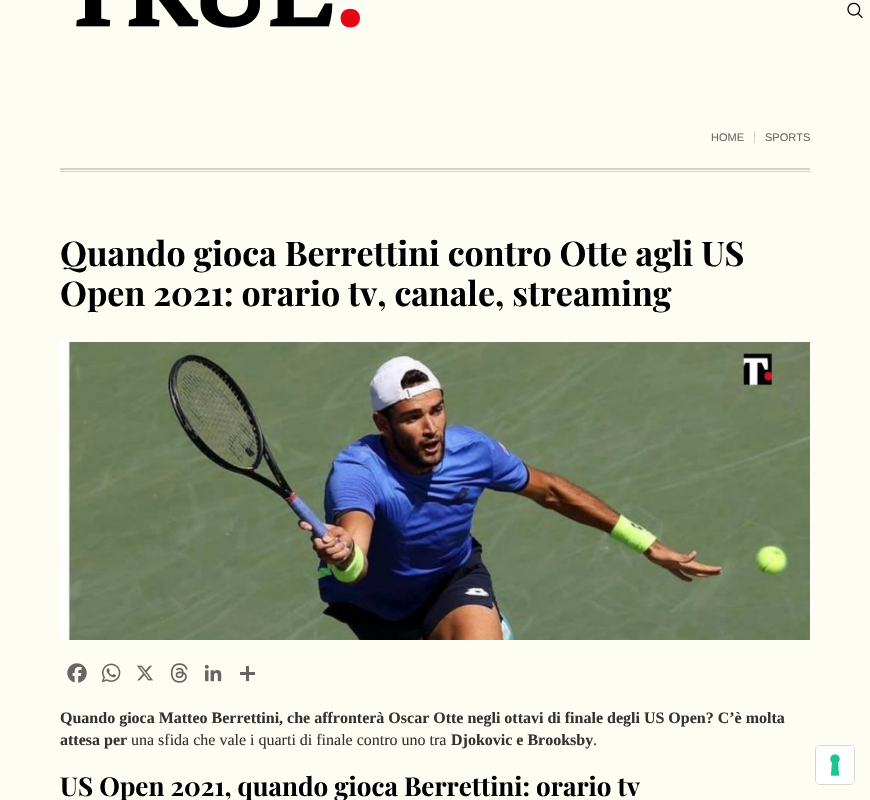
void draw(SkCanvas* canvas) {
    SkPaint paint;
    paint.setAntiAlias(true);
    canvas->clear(0xFFFEFDF3);
    canvas->drawImageRect(SkImages::DeferredFromEncodedData(SkData::MakeFromFileName("img1.png")), SkRect::MakeXYWH(76, 0, 284, 28), SkSamplingOptions());
    canvas->drawImageRect(SkImages::DeferredFromEncodedData(SkData::MakeFromFileName("img2.png")), SkRect::MakeXYWH(847, 2, 16, 16), SkSamplingOptions());
    paint.setColor(0xFFD3D2CA);
    canvas->drawRect(SkRect::MakeXYWH(60, 168, 750, 2), paint);
    canvas->drawRect(SkRect::MakeXYWH(60, 171, 750, 1), paint);
    SkFont font1(fontMgr->matchFamilyStyle("Liberation Sans", SkFontStyle::Normal()), 11);
    font1.setSubpixel(true);
    paint.setColor(0xFF666561);
    canvas->drawString("HOME", 711, 141, font1, paint);
    paint.setColor(0xFFD3D2CA);
    canvas->drawRect(SkRect::MakeXYWH(754, 131, 1, 12), paint);
    paint.setColor(0xFF666561);
    canvas->drawString("SPORTS", 765, 141, font1, paint);
    SkFont font2(fontMgr->matchFamilyStyle("Playfair Display", SkFontStyle::Bold()), 34);
    font2.setSubpixel(true);
    paint.setColor(0xFF000000);
    canvas->drawString("Quando gioca Berrettini contro Otte agli US", 60, 266, font2, paint);
    canvas->drawString("Open 2021: orario tv, canale, streaming", 60, 306, font2, paint);
    canvas->drawImageRect(SkImages::DeferredFromEncodedData(SkData::MakeFromFileName("img3.png")), SkRect::MakeXYWH(60, 342, 750, 298), SkSamplingOptions());
    canvas->drawImageRect(SkImages::DeferredFromEncodedData(SkData::MakeFromFileName("img4.png")), SkRect::MakeXYWH(67, 663, 20, 20), SkSamplingOptions());
    canvas->drawImageRect(SkImages::DeferredFromEncodedData(SkData::MakeFromFileName("img5.png")), SkRect::MakeXYWH(101, 663, 20, 20), SkSamplingOptions());
    canvas->drawImageRect(SkImages::DeferredFromEncodedData(SkData::MakeFromFileName("img6.png")), SkRect::MakeXYWH(137, 665, 16, 16), SkSamplingOptions());
    canvas->drawImageRect(SkImages::DeferredFromEncodedData(SkData::MakeFromFileName("img7.png")), SkRect::MakeXYWH(170, 663, 18, 20), SkSamplingOptions());
    canvas->drawImageRect(SkImages::DeferredFromEncodedData(SkData::MakeFromFileName("img8.png")), SkRect::MakeXYWH(204, 664, 18, 18), SkSamplingOptions());
    paint.setColor(0xFF676663);
    canvas->drawRect(SkRect::MakeXYWH(246, 666, 3, 15), paint);
    canvas->drawRect(SkRect::MakeXYWH(240, 672, 15, 3), paint);
    SkFont font3(fontMgr->matchFamilyStyle("Liberation Serif", SkFontStyle::Bold()), 16);
    font3.setSubpixel(true);
    paint.setColor(0xFF333331);
    canvas->drawString("Quando gioca Matteo Berrettini, che affronterà Oscar Otte negli ottavi di finale degli US Open? C’è molta", 60, 723, font3, paint);
    canvas->drawString("attesa per", 60, 745, font3, paint);
    SkFont font4(fontMgr->matchFamilyStyle("Liberation Serif", SkFontStyle::Normal()), 16);
    font4.setSubpixel(true);
    canvas->drawString("una sfida che vale i quarti di finale contro uno tra", 131, 745, font4, paint);
    canvas->drawString("Djokovic e Brooksby", 451, 745, font3, paint);
    canvas->drawString(".", 593, 745, font4, paint);
    SkFont font5(fontMgr->matchFamilyStyle("Playfair Display", SkFontStyle::Bold()), 26);
    font5.setSubpixel(true);
    paint.setColor(0xFF000000);
    canvas->drawString("US Open 2021, quando gioca Berrettini: orario tv", 60, 796, font5, paint);
    paint.setStyle(SkPaint::kStroke_Style);
    paint.setStrokeWidth(1);
    paint.setColor(0xFFD8D7CF);
    canvas->drawRoundRect(SkRect::MakeXYWH(815.5f, 745.5f, 39, 39), 4.5f, 4.5f, paint);
    paint.setStyle(SkPaint::kFill_Style);
    paint.setColor(0xFFFFFFFF);
    canvas->drawRoundRect(SkRect::MakeXYWH(816, 746, 38, 38), 4, 4, paint);
    canvas->drawImageRect(SkImages::DeferredFromEncodedData(SkData::MakeFromFileName("img9.png")), SkRect::MakeXYWH(830, 754, 10, 22), SkSamplingOptions());
}
